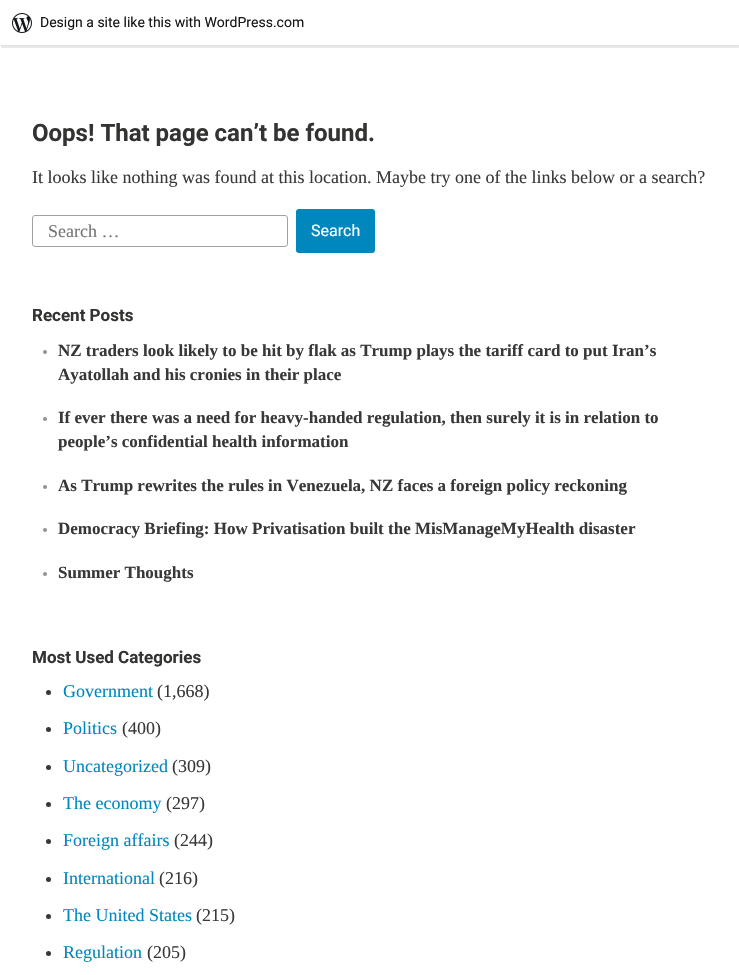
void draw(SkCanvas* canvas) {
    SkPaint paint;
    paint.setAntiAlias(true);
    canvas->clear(0xFFFFFFFF);
    paint.setColor(0x0D000000);
    paint.setMaskFilter(SkMaskFilter::MakeBlur(kNormal_SkBlurStyle, 1));
    canvas->drawRect(SkRect::MakeXYWH(0, 1, 739, 45), paint);
    paint.setMaskFilter(nullptr);
    paint.setColor(0x14000000);
    canvas->drawPath(SkPathBuilder().moveTo(1, 45).lineTo(1, 48).lineTo(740, 48).lineTo(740, 3).lineTo(739, 3).lineTo(739, 45).close().detach(), paint);
    paint.setColor(0xFFFFFFFF);
    canvas->drawRect(SkRect::MakeXYWH(0, 0, 739, 45), paint);
    canvas->drawImageRect(SkImages::DeferredFromEncodedData(SkData::MakeFromFileName("img1.png")), SkRect::MakeXYWH(12, 13, 20, 20), SkSamplingOptions());
    SkFont font1(fontMgr->matchFamilyStyle("Roboto", SkFontStyle::Normal()), 14);
    font1.setSubpixel(true);
    paint.setColor(0xFF171717);
    canvas->drawString("Design a site like this with WordPress.com", 40, 27, font1, paint);
    SkFont font2(fontMgr->matchFamilyStyle("Roboto", SkFontStyle::Bold()), 24);
    font2.setSubpixel(true);
    paint.setColor(0xFF333332);
    canvas->drawString("Oops! That page can’t be found.", 32, 141, font2, paint);
    SkFont font3(fontMgr->matchFamilyStyle("Liberation Serif", SkFontStyle::Normal()), 18);
    font3.setSubpixel(true);
    paint.setColor(0xFF383838);
    canvas->drawString("It looks like nothing was found at this location. Maybe try one of the links below or a search?", 32, 183, font3, paint);
    paint.setStyle(SkPaint::kStroke_Style);
    paint.setStrokeWidth(1);
    paint.setColor(0xFFA1A1A1);
    canvas->drawRoundRect(SkRect::MakeXYWH(32.5f, 215.5f, 255, 31), 2.5f, 2.5f, paint);
    paint.setStyle(SkPaint::kFill_Style);
    paint.setColor(0xFF757575);
    canvas->drawString("Search …", 48, 237, font3, paint);
    paint.setColor(0xFF0087BE);
    canvas->drawRoundRect(SkRect::MakeXYWH(296, 209, 79, 44), 3, 3, paint);
    SkFont font4(fontMgr->matchFamilyStyle("Roboto", SkFontStyle::Normal()), 16);
    font4.setSubpixel(true);
    paint.setColor(0xFFFFFFFF);
    canvas->drawString("Search", 311, 236, font4, paint);
    SkFont font5(fontMgr->matchFamilyStyle("Roboto", SkFontStyle::Bold()), 17);
    font5.setSubpixel(true);
    paint.setColor(0xFF333332);
    canvas->drawString("Recent Posts", 32, 321, font5, paint);
    paint.setColor(0xFF939393);
    canvas->drawCircle(45, 352, 2, paint);
    SkFont font6(fontMgr->matchFamilyStyle("Liberation Serif", SkFontStyle::Bold()), 17);
    font6.setSubpixel(true);
    paint.setColor(0xFF383838);
    canvas->drawString("NZ traders look likely to be hit by flak as Trump plays the tariff card to put Iran’s", 58, 356, font6, paint);
    canvas->drawString("Ayatollah and his cronies in their place", 58, 380, font6, paint);
    paint.setColor(0xFF939393);
    canvas->drawCircle(45, 419, 2, paint);
    paint.setColor(0xFF383838);
    canvas->drawString("If ever there was a need for heavy-handed regulation, then surely it is in relation to", 58, 423, font6, paint);
    canvas->drawString("people’s confidential health information", 58, 447, font6, paint);
    paint.setColor(0xFF939393);
    canvas->drawCircle(45, 487, 2, paint);
    paint.setColor(0xFF383838);
    canvas->drawString("As Trump rewrites the rules in Venezuela, NZ faces a foreign policy reckoning", 58, 491, font6, paint);
    paint.setColor(0xFF939393);
    canvas->drawCircle(45, 530, 2, paint);
    paint.setColor(0xFF383838);
    canvas->drawString("Democracy Briefing: How Privatisation built the MisManageMyHealth disaster", 58, 534, font6, paint);
    paint.setColor(0xFF939393);
    canvas->drawCircle(45, 574, 2, paint);
    paint.setColor(0xFF383838);
    canvas->drawString("Summer Thoughts", 58, 578, font6, paint);
    paint.setColor(0xFF333332);
    canvas->drawString("Most Used Categories", 32, 663, font5, paint);
    paint.setColor(0xFF383838);
    canvas->drawCircle(48.5f, 692.5f, 2.5f, paint);
    paint.setColor(0xFF0087BE);
    canvas->drawString("Government", 63, 697, font3, paint);
    paint.setColor(0xFF383838);
    canvas->drawString("(1,668)", 157, 697, font3, paint);
    canvas->drawCircle(48.5f, 729.5f, 2.5f, paint);
    paint.setColor(0xFF0087BE);
    canvas->drawString("Politics", 63, 734, font3, paint);
    paint.setColor(0xFF383838);
    canvas->drawString("(400)", 122, 734, font3, paint);
    canvas->drawCircle(48.5f, 767.5f, 2.5f, paint);
    paint.setColor(0xFF0087BE);
    canvas->drawString("Uncategorized", 63, 772, font3, paint);
    paint.setColor(0xFF383838);
    canvas->drawString("(309)", 172, 772, font3, paint);
    canvas->drawCircle(48.5f, 804.5f, 2.5f, paint);
    paint.setColor(0xFF0087BE);
    canvas->drawString("The economy", 63, 809, font3, paint);
    paint.setColor(0xFF383838);
    canvas->drawString("(297)", 166, 809, font3, paint);
    canvas->drawCircle(48.5f, 841.5f, 2.5f, paint);
    paint.setColor(0xFF0087BE);
    canvas->drawString("Foreign affairs", 63, 846, font3, paint);
    paint.setColor(0xFF383838);
    canvas->drawString("(244)", 174, 846, font3, paint);
    canvas->drawCircle(48.5f, 879.5f, 2.5f, paint);
    paint.setColor(0xFF0087BE);
    canvas->drawString("International", 63, 884, font3, paint);
    paint.setColor(0xFF383838);
    canvas->drawString("(216)", 159, 884, font3, paint);
    canvas->drawCircle(48.5f, 916.5f, 2.5f, paint);
    paint.setColor(0xFF0087BE);
    canvas->drawString("The United States", 63, 921, font3, paint);
    paint.setColor(0xFF383838);
    canvas->drawString("(215)", 196, 921, font3, paint);
    canvas->drawCircle(48.5f, 953.5f, 2.5f, paint);
    paint.setColor(0xFF0087BE);
    canvas->drawString("Regulation", 63, 958, font3, paint);
    paint.setColor(0xFF383838);
    canvas->drawString("(205)", 147, 958, font3, paint);
}
